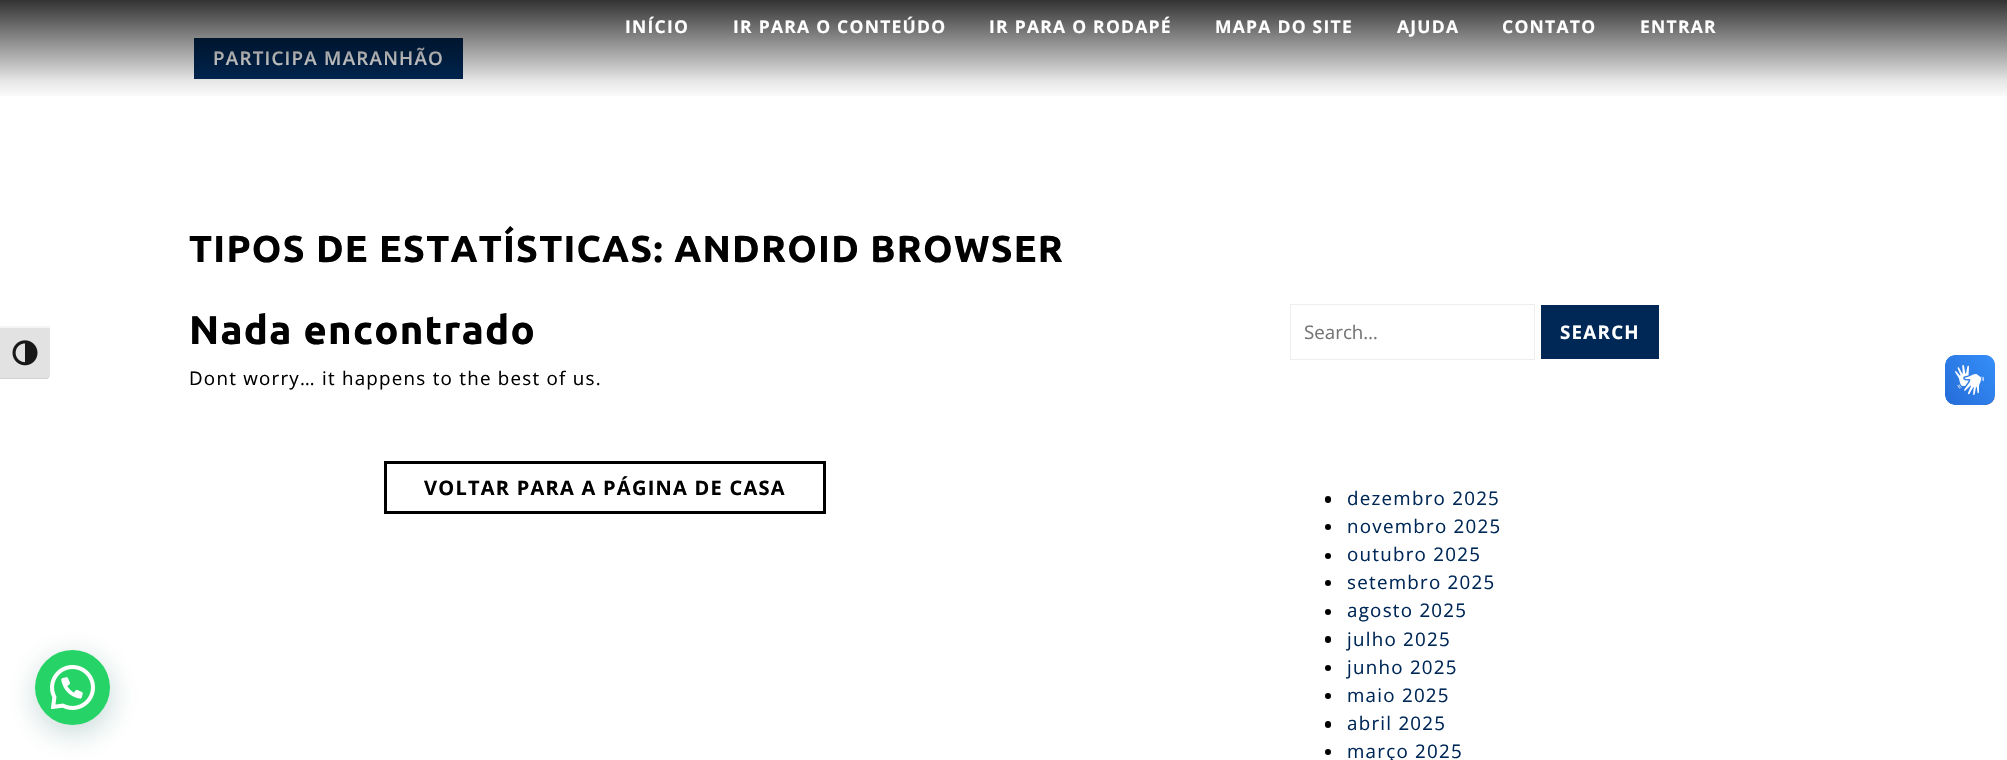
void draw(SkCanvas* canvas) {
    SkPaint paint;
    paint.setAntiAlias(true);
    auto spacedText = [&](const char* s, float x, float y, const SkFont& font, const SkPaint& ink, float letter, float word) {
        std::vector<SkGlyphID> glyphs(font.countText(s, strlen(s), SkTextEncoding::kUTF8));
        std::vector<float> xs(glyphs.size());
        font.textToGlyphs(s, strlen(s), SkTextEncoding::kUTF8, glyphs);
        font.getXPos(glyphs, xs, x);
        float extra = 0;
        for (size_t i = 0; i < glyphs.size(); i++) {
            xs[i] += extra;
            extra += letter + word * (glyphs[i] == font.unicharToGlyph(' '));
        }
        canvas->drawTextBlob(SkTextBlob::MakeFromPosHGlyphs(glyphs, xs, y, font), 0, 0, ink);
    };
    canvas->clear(0xFFFFFFFF);
    paint.setColor(0xFF002857);
    canvas->drawRect(SkRect::MakeXYWH(194, 38, 269, 41), paint);
    SkFont font1(fontMgr->matchFamilyStyle("Open Sans", SkFontStyle(600, SkFontStyle::kNormal_Width, SkFontStyle::kUpright_Slant)), 18.75f);
    font1.setSubpixel(true);
    paint.setColor(0xFFFFFFFF);
    spacedText("PARTICIPA MARANHÃO", 213, 65, font1, paint, 1.25f, 0);
    {
        const SkColor colors[] = {0xCC000000, 0x33000000, 0x1A000000, 0x00000000};
        const float stops[] = {0, 0.7f, 0.8f, 1};
        const SkPoint ends[] = {{1004, 0}, {1004, 100}};
        paint.setShader(SkGradientShader::MakeLinear(ends, colors, stops, 4, SkTileMode::kClamp));
        paint.setAlpha(255);
    }
    canvas->drawRect(SkRect::MakeXYWH(0, 0, 2007, 96), paint);
    SkFont font2(fontMgr->matchFamilyStyle("Open Sans", SkFontStyle::Bold()), 17.5f);
    font2.setSubpixel(true);
    paint.setShader(nullptr);
    paint.setColor(0xFFFFFFFF);
    spacedText("INÍCIO", 625, 33, font2, paint, 1.25f, 0);
    spacedText("IR PARA O CONTEÚDO", 733, 33, font2, paint, 1.25f, 0);
    spacedText("IR PARA O RODAPÉ", 989, 33, font2, paint, 1.25f, 0);
    spacedText("MAPA DO SITE", 1215, 33, font2, paint, 1.25f, 0);
    spacedText("AJUDA", 1397, 33, font2, paint, 1.25f, 0);
    spacedText("CONTATO", 1502, 33, font2, paint, 1.25f, 0);
    spacedText("ENTRAR", 1640, 33, font2, paint, 1.25f, 0);
    paint.setColor(0xFFE2E2E2);
    canvas->drawPath(SkPathBuilder().moveTo(0, 326).lineTo(50, 326).lineTo(50, 374).cubicTo(50, 377, 48, 379, 45, 379).lineTo(0, 379).close().detach(), paint);
    paint.setColor(0xFFF5F5F5);
    canvas->drawRect(SkRect::MakeXYWH(0, 326, 50, 2), paint);
    paint.setColor(0xFFD2D2D2);
    canvas->drawPath(SkPathBuilder().moveTo(47, 379).cubicTo(49, 378, 50, 376, 50, 374).cubicTo(50, 376, 48, 378, 45, 378).lineTo(0, 378).lineTo(0, 379).close().detach(), paint);
    canvas->drawImageRect(SkImages::DeferredFromEncodedData(SkData::MakeFromFileName("img1.png")), SkRect::MakeXYWH(12, 340, 26, 26), SkSamplingOptions());
    SkFont font3(fontMgr->matchFamilyStyle("Ubuntu", SkFontStyle::Bold()), 37.5f);
    font3.setSubpixel(true);
    paint.setColor(0xFF000000);
    spacedText("TIPOS DE ESTATÍSTICAS: ANDROID BROWSER", 189, 262, font3, paint, 1.25f, 0);
    SkFont font4(fontMgr->matchFamilyStyle("Ubuntu", SkFontStyle::Bold()), 40);
    font4.setSubpixel(true);
    spacedText("Nada encontrado", 189, 344, font4, paint, 1.25f, 0);
    SkFont font5(fontMgr->matchFamilyStyle("Open Sans", SkFontStyle::Normal()), 18.75f);
    font5.setSubpixel(true);
    spacedText("Dont worry… it happens to the best of us.", 189, 385, font5, paint, 1.25f, 0);
    paint.setStyle(SkPaint::kStroke_Style);
    paint.setStrokeWidth(3);
    canvas->drawRect(SkRect::MakeXYWH(385.5f, 462.5f, 439, 50), paint);
    SkFont font6(fontMgr->matchFamilyStyle("Open Sans", SkFontStyle::Bold()), 20);
    font6.setSubpixel(true);
    paint.setStyle(SkPaint::kFill_Style);
    spacedText("VOLTAR PARA A PÁGINA DE CASA", 424, 495, font6, paint, 1.25f, 0);
    paint.setStyle(SkPaint::kStroke_Style);
    paint.setStrokeWidth(1);
    paint.setColor(0xFFEEEEEE);
    canvas->drawRect(SkRect::MakeXYWH(1290.5f, 304.5f, 244, 55), paint);
    paint.setStyle(SkPaint::kFill_Style);
    paint.setColor(0xFF757575);
    canvas->drawString("Search…", 1304, 339, font5, paint);
    paint.setColor(0xFF002857);
    canvas->drawRect(SkRect::MakeXYWH(1541, 305, 118, 54), paint);
    SkFont font7(fontMgr->matchFamilyStyle("Open Sans", SkFontStyle::Bold()), 18.75f);
    font7.setSubpixel(true);
    paint.setColor(0xFFFFFFFF);
    spacedText("SEARCH", 1560, 339, font7, paint, 1.25f, 0);
    paint.setColor(0xFF000000);
    canvas->drawRoundRect(SkRect::MakeXYWH(1325, 496, 6, 7), 3, 3, paint);
    paint.setColor(0xFF002857);
    spacedText("dezembro 2025", 1347, 505, font5, paint, 1.25f, 0);
    paint.setColor(0xFF000000);
    canvas->drawCircle(1328, 527, 3, paint);
    paint.setColor(0xFF002857);
    spacedText("novembro 2025", 1347, 533, font5, paint, 1.25f, 0);
    paint.setColor(0xFF000000);
    canvas->drawCircle(1328, 556, 3, paint);
    paint.setColor(0xFF002857);
    spacedText("outubro 2025", 1347, 561, font5, paint, 1.25f, 0);
    paint.setColor(0xFF000000);
    canvas->drawCircle(1328, 583, 3, paint);
    paint.setColor(0xFF002857);
    spacedText("setembro 2025", 1347, 589, font5, paint, 1.25f, 0);
    paint.setColor(0xFF000000);
    canvas->drawCircle(1328, 612, 3, paint);
    paint.setColor(0xFF002857);
    spacedText("agosto 2025", 1347, 617, font5, paint, 1.25f, 0);
    paint.setColor(0xFF000000);
    canvas->drawRoundRect(SkRect::MakeXYWH(1325, 636, 6, 7), 3, 3, paint);
    paint.setColor(0xFF002857);
    spacedText("julho 2025", 1347, 646, font5, paint, 1.25f, 0);
    paint.setColor(0xFF000000);
    canvas->drawCircle(1328, 668, 3, paint);
    paint.setColor(0xFF002857);
    spacedText("junho 2025", 1347, 674, font5, paint, 1.25f, 0);
    paint.setColor(0xFF000000);
    canvas->drawCircle(1328, 696, 3, paint);
    paint.setColor(0xFF002857);
    spacedText("maio 2025", 1347, 702, font5, paint, 1.25f, 0);
    paint.setColor(0xFF000000);
    canvas->drawRoundRect(SkRect::MakeXYWH(1325, 721, 6, 7), 3, 3, paint);
    paint.setColor(0xFF002857);
    spacedText("abril 2025", 1347, 730, font5, paint, 1.25f, 0);
    paint.setColor(0xFF000000);
    canvas->drawCircle(1328, 752, 3, paint);
    paint.setColor(0xFF002857);
    spacedText("março 2025", 1347, 758, font5, paint, 1.25f, 0);
    canvas->drawImageRect(SkImages::DeferredFromEncodedData(SkData::MakeFromFileName("img2.png")), SkRect::MakeXYWH(1945, 355, 50, 50), SkSamplingOptions());
    canvas->drawImageRect(SkImages::DeferredFromEncodedData(SkData::MakeFromFileName("img3.png")), SkRect::MakeXYWH(1945, 355, 50, 50), SkSamplingOptions());
    paint.setColor(0x3D075E54);
    paint.setMaskFilter(SkMaskFilter::MakeBlur(kNormal_SkBlurStyle, 15));
    canvas->drawRoundRect(SkRect::MakeXYWH(36, 658, 75, 75), 37.5f, 37.5f, paint);
    paint.setMaskFilter(nullptr);
    paint.setColor(0xFF25D366);
    canvas->drawCircle(72.5f, 687.5f, 37.5f, paint);
    canvas->drawImageRect(SkImages::DeferredFromEncodedData(SkData::MakeFromFileName("img4.png")), SkRect::MakeXYWH(50, 665, 45, 45), SkSamplingOptions());
}
